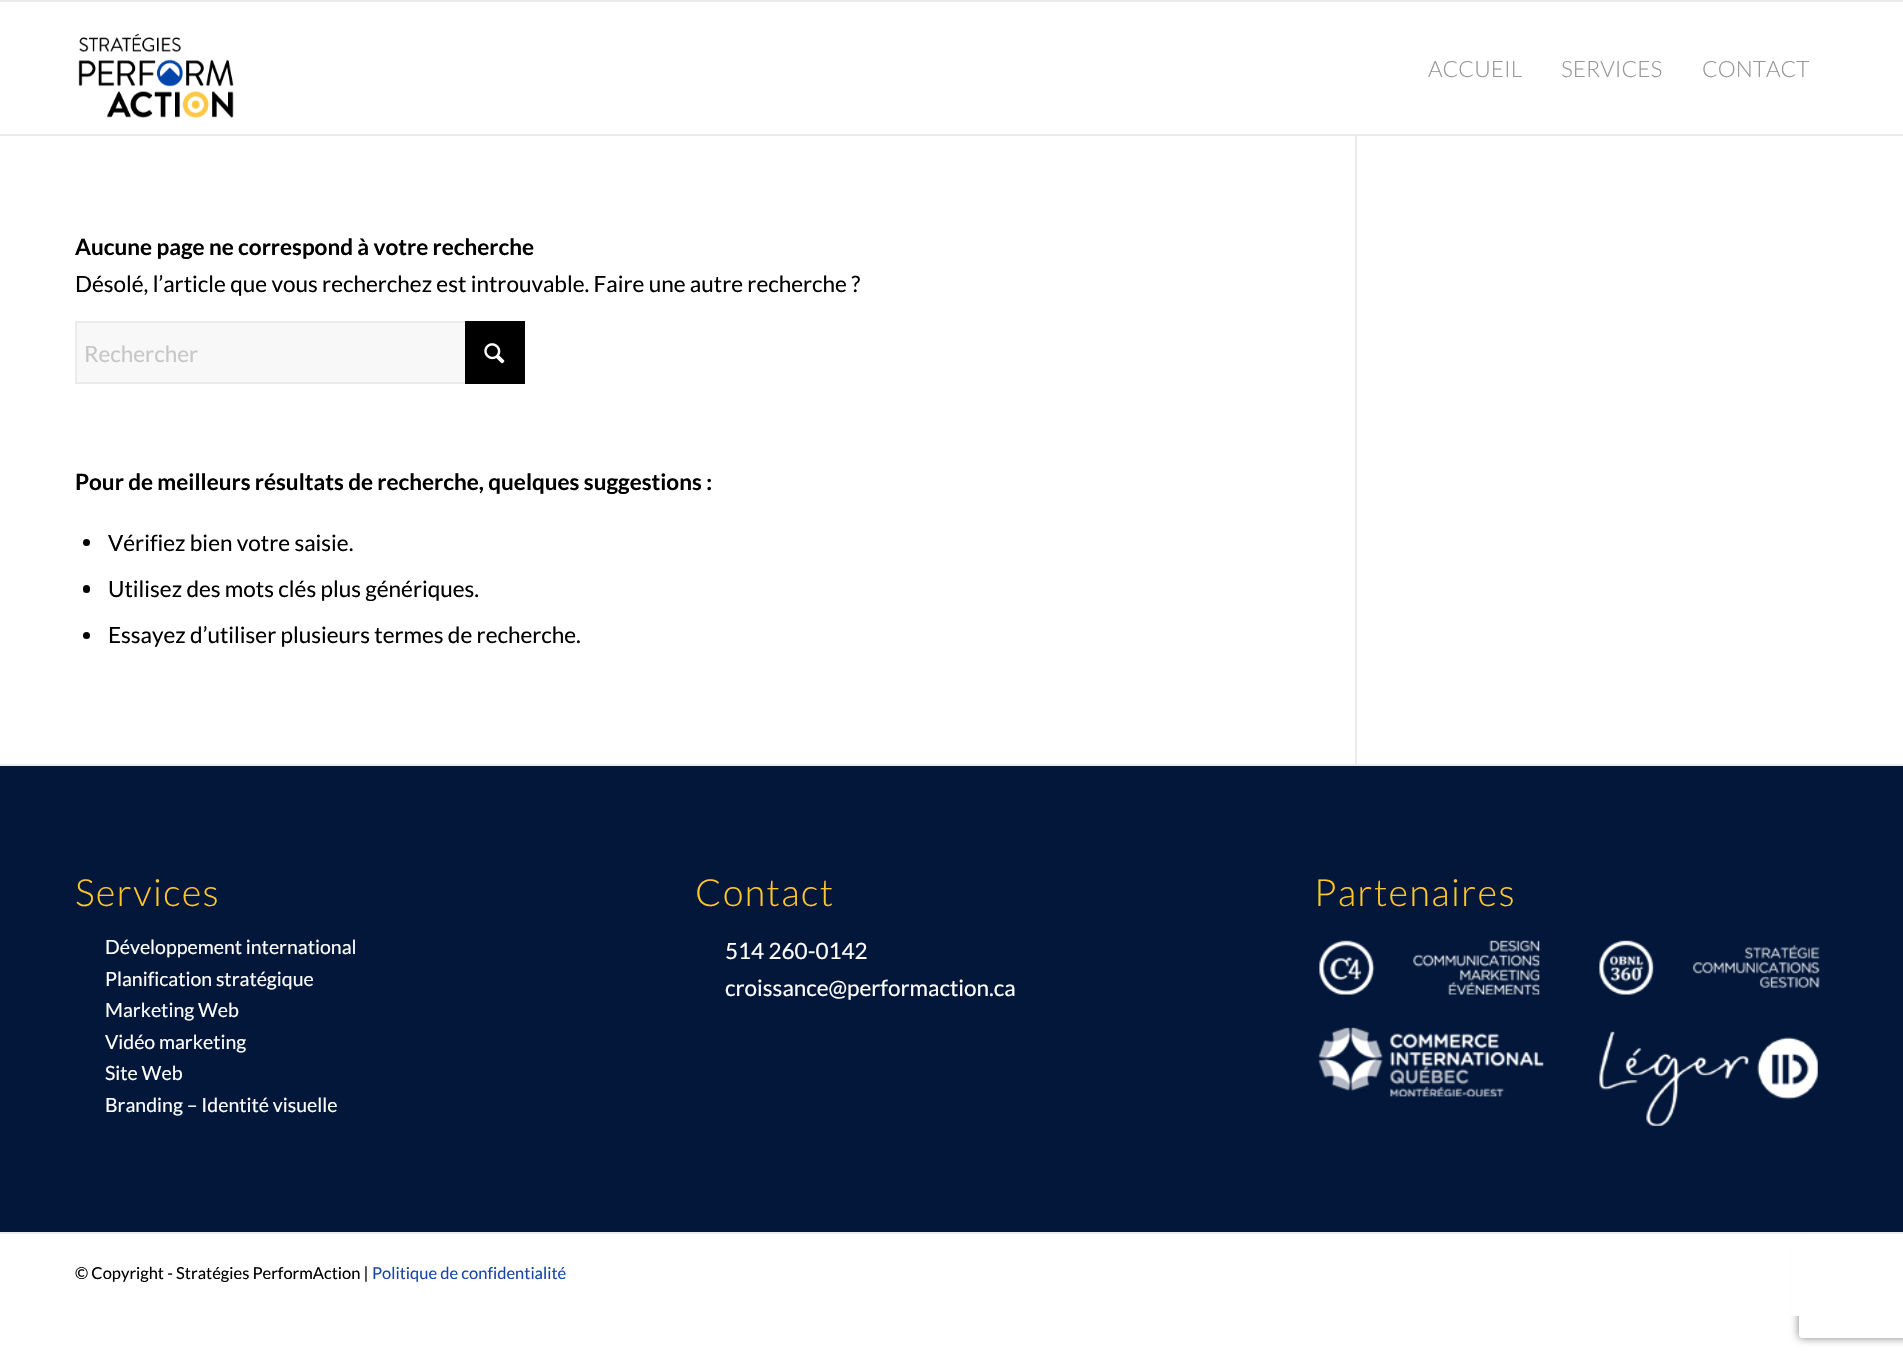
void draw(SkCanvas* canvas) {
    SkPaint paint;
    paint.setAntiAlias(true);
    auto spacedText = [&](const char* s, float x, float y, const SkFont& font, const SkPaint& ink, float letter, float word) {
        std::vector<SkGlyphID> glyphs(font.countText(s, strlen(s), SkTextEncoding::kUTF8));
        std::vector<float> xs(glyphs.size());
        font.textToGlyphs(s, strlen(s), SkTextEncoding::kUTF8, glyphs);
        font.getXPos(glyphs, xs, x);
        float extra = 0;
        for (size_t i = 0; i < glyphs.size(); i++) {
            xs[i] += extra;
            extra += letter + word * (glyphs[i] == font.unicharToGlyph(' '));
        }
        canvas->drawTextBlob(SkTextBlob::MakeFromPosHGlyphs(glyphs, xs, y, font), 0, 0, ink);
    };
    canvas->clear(0xFFFFFFFF);
    paint.setColor(0xFFEBEBEB);
    canvas->drawRect(SkRect::MakeXYWH(0, 0, 1903, 2), paint);
    canvas->drawRect(SkRect::MakeXYWH(1355, 134, 2, 630), paint);
    canvas->drawRect(SkRect::MakeXYWH(0, 134, 1903, 2), paint);
    canvas->drawImageRect(SkImages::DeferredFromEncodedData(SkData::MakeFromFileName("img1.png")), SkRect::MakeXYWH(78, 33, 156, 85), SkSamplingOptions());
    SkFont font1(fontMgr->matchFamilyStyle("Lato", SkFontStyle(300, SkFontStyle::kNormal_Width, SkFontStyle::kUpright_Slant)), 22.5f);
    font1.setSubpixel(true);
    paint.setColor(0xFF969696);
    canvas->drawString("ACCUEIL", 1428, 77, font1, paint);
    canvas->drawString("SERVICES", 1561, 77, font1, paint);
    canvas->drawString("CONTACT", 1702, 77, font1, paint);
    SkFont font2(fontMgr->matchFamilyStyle("Lato", SkFontStyle::Bold()), 22.5f);
    font2.setSubpixel(true);
    paint.setColor(0xFF000000);
    canvas->drawString("Aucune page ne correspond à votre recherche", 75, 255, font2, paint);
    SkFont font3(fontMgr->matchFamilyStyle("Lato", SkFontStyle::Normal()), 22.5f);
    font3.setSubpixel(true);
    canvas->drawString("Désolé, l’article que vous recherchez est introuvable. Faire une autre recherche ?", 75, 292, font3, paint);
    paint.setColor(0xFFF8F8F8);
    canvas->drawRect(SkRect::MakeXYWH(77, 323, 388, 59), paint);
    paint.setStyle(SkPaint::kStroke_Style);
    paint.setStrokeWidth(2);
    paint.setColor(0xFFEBEBEB);
    canvas->drawRect(SkRect::MakeXYWH(76, 322, 448, 61), paint);
    paint.setStyle(SkPaint::kFill_Style);
    paint.setColor(0xFF000000);
    canvas->drawRect(SkRect::MakeXYWH(465, 321, 60, 63), paint);
    paint.setColor(0xFFC7C7C7);
    canvas->drawString("Rechercher", 84, 362, font3, paint);
    canvas->drawImageRect(SkImages::DeferredFromEncodedData(SkData::MakeFromFileName("img2.png")), SkRect::MakeXYWH(484, 343, 21, 21), SkSamplingOptions());
    paint.setColor(0xFF000000);
    canvas->drawString("Pour de meilleurs résultats de recherche, quelques suggestions :", 75, 490, font2, paint);
    canvas->drawCircle(86.5f, 542.5f, 3.5f, paint);
    canvas->drawString("Vérifiez bien votre saisie.", 108, 551, font3, paint);
    canvas->drawRoundRect(SkRect::MakeXYWH(83, 585, 7, 8), 3.5f, 3.5f, paint);
    canvas->drawString("Utilisez des mots clés plus génériques.", 108, 597, font3, paint);
    canvas->drawCircle(86.5f, 635.5f, 3.5f, paint);
    canvas->drawString("Essayez d’utiliser plusieurs termes de recherche.", 108, 643, font3, paint);
    paint.setColor(0xFF02173A);
    canvas->drawRect(SkRect::MakeXYWH(0, 766, 1903, 466), paint);
    paint.setColor(0xFFEBEBEB);
    canvas->drawRect(SkRect::MakeXYWH(0, 764, 1903, 2), paint);
    SkFont font4(fontMgr->matchFamilyStyle("Lato", SkFontStyle(300, SkFontStyle::kNormal_Width, SkFontStyle::kUpright_Slant)), 37.5f);
    font4.setSubpixel(true);
    paint.setColor(0xFFFFC72C);
    spacedText("Services", 75, 906, font4, paint, 1.5f, 0);
    SkFont font5(fontMgr->matchFamilyStyle("Lato", SkFontStyle::Normal()), 19.5f);
    font5.setSubpixel(true);
    paint.setColor(0xFFFFFFFF);
    canvas->drawString("Développement international", 105, 954, font5, paint);
    canvas->drawString("Planification stratégique", 105, 986, font5, paint);
    canvas->drawString("Marketing Web", 105, 1017, font5, paint);
    canvas->drawString("Vidéo marketing", 105, 1049, font5, paint);
    canvas->drawString("Site Web", 105, 1080, font5, paint);
    canvas->drawString("Branding – Identité visuelle", 105, 1112, font5, paint);
    paint.setColor(0xFFFFC72C);
    spacedText("Contact", 695, 906, font4, paint, 1.5f, 0);
    paint.setColor(0xFFFFFFFF);
    canvas->drawString("514 260-0142", 725, 959, font3, paint);
    canvas->drawString("croissance@performaction.ca", 725, 996, font3, paint);
    paint.setColor(0xFFFFC72C);
    spacedText("Partenaires", 1314, 906, font4, paint, 1.5f, 0);
    canvas->drawImageRect(SkImages::DeferredFromEncodedData(SkData::MakeFromFileName("img3.png")), SkRect::MakeXYWH(1318, 940, 502, 186), SkSamplingOptions());
    canvas->save();
    canvas->clipPath(SkPathBuilder(SkPathFillType::kEvenOdd).moveTo(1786, 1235).lineTo(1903, 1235).lineTo(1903, 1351).lineTo(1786, 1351).close().moveTo(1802, 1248).lineTo(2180, 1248).cubicTo(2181.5f, 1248, 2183, 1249.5f, 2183, 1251).lineTo(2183, 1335).cubicTo(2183, 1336.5f, 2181.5f, 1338, 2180, 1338).lineTo(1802, 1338).cubicTo(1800.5f, 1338, 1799, 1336.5f, 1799, 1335).lineTo(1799, 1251).cubicTo(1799, 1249.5f, 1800.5f, 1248, 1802, 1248).close().detach(), true);
    paint.setColor(0xFF808080);
    paint.setMaskFilter(SkMaskFilter::MakeBlur(kNormal_SkBlurStyle, 4));
    canvas->drawRoundRect(SkRect::MakeXYWH(1799, 1248, 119, 90), 3, 3, paint);
    paint.setMaskFilter(nullptr);
    canvas->restore();
    paint.setColor(0xFFFFFFFF);
    canvas->drawRect(SkRect::MakeXYWH(1791, 1240, 112, 76), paint);
    paint.setColor(0xFFEBEBEB);
    canvas->drawRect(SkRect::MakeXYWH(0, 1232, 1903, 2), paint);
    SkFont font6(fontMgr->matchFamilyStyle("Lato", SkFontStyle::Normal()), 16.5f);
    font6.setSubpixel(true);
    paint.setColor(0xFF000000);
    canvas->drawString("© Copyright - Stratégies PerformAction |", 75, 1279, font6, paint);
    paint.setColor(0xFF1646A8);
    canvas->drawString("Politique de confidentialité", 372, 1279, font6, paint);
}
